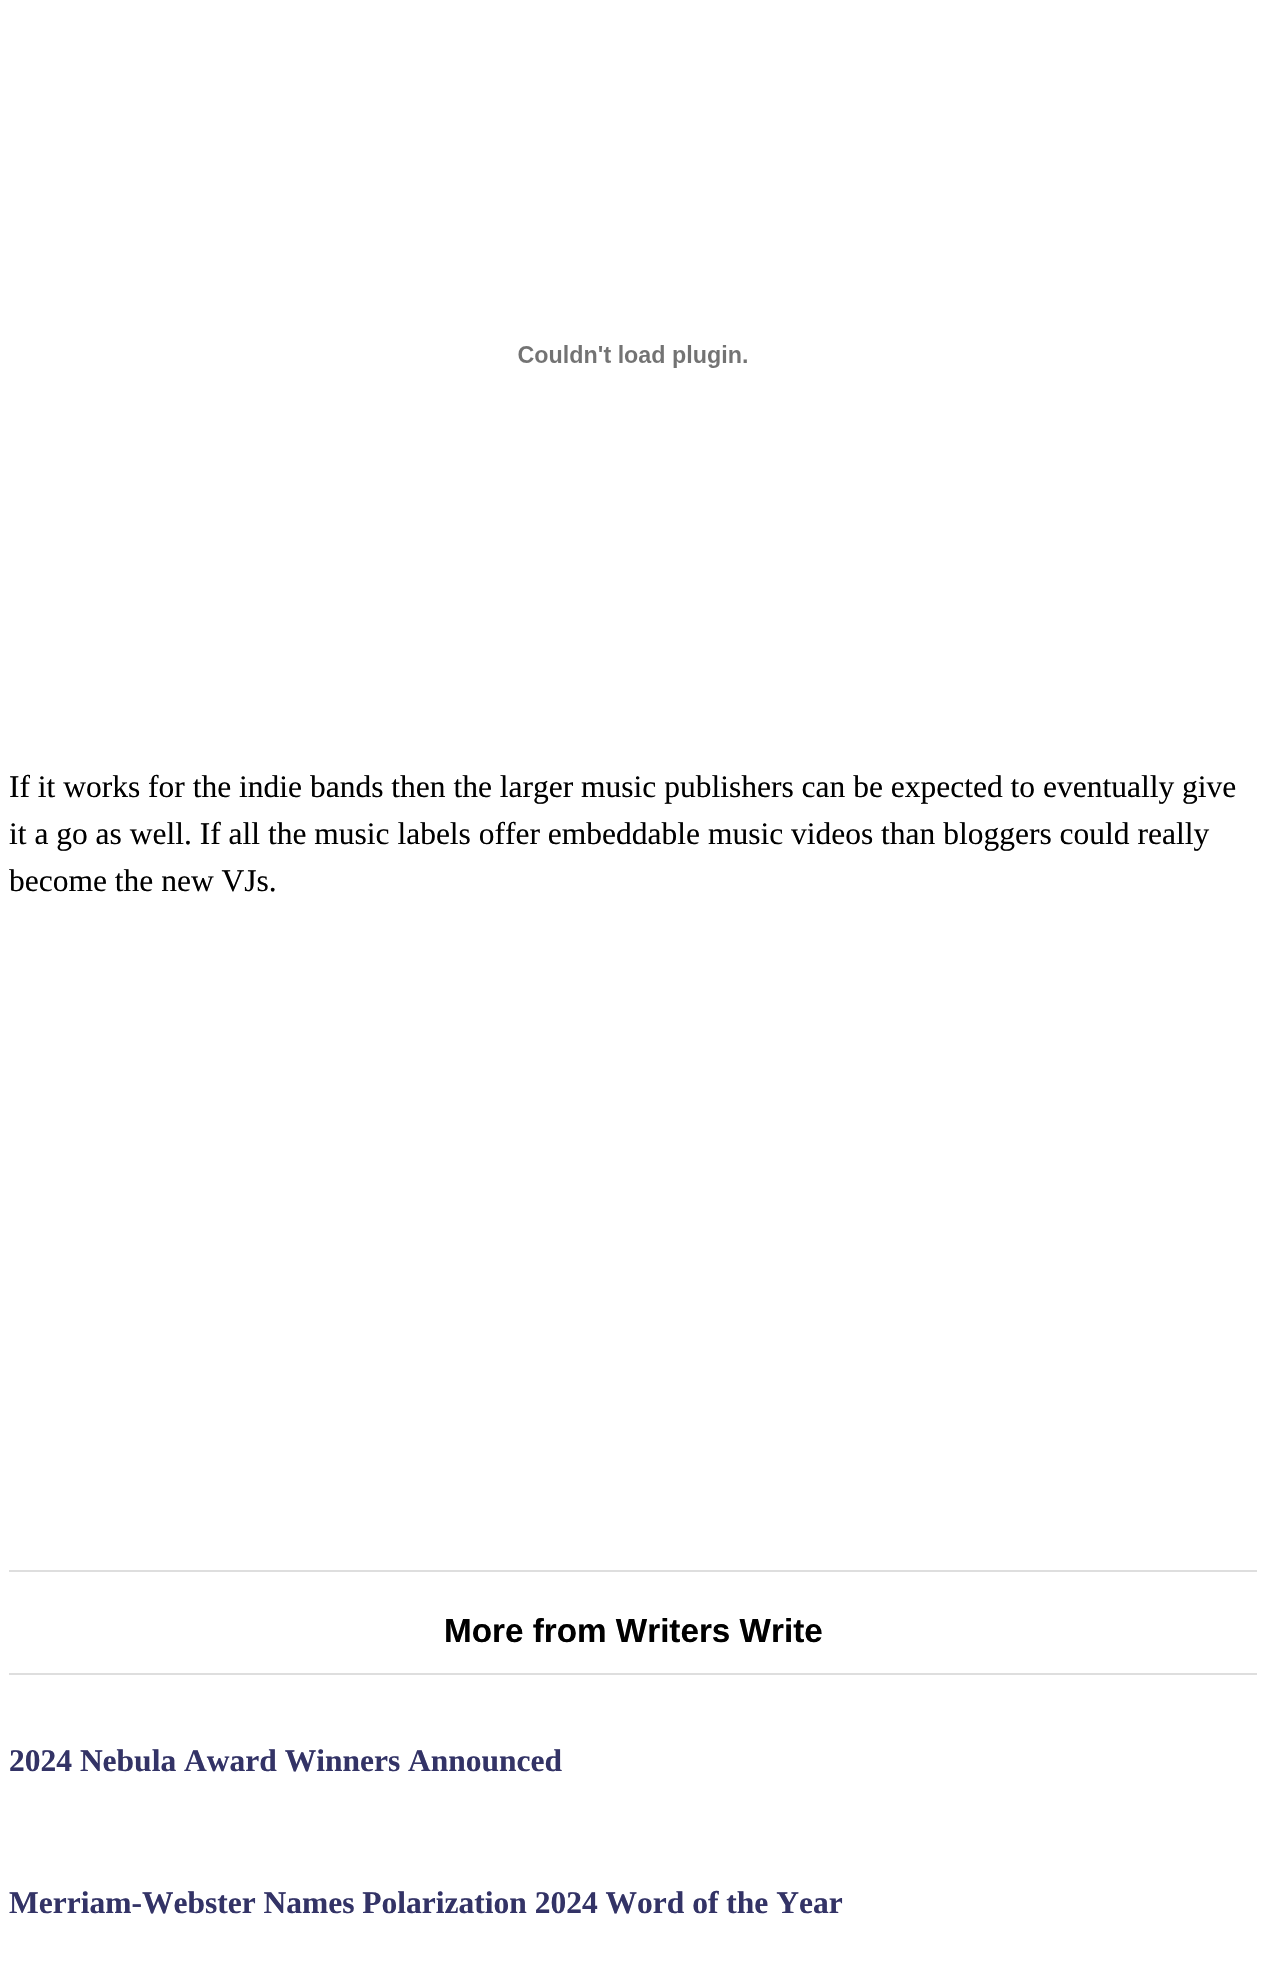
void draw(SkCanvas* canvas) {
    SkPaint paint;
    paint.setAntiAlias(true);
    canvas->clear(0xFFFFFFFF);
    canvas->drawImageRect(SkImages::DeferredFromEncodedData(SkData::MakeFromFileName("img1.png")), SkRect::MakeXYWH(518, 345, 229, 23), SkSamplingOptions());
    SkFont font1(fontMgr->matchFamilyStyle("Liberation Serif", SkFontStyle::Normal()), 31.5f);
    font1.setSubpixel(true);
    paint.setColor(0xFF000000);
    canvas->drawString("If it works for the indie bands then the larger music publishers can be expected to eventually give", 9, 797, font1, paint);
    canvas->drawString("it a go as well. If all the music labels offer embeddable music videos than bloggers could really", 9, 844, font1, paint);
    canvas->drawString("become the new VJs.", 9, 891, font1, paint);
    paint.setColor(0xFFDEDEDE);
    canvas->drawRect(SkRect::MakeXYWH(9, 1570, 1248, 2), paint);
    SkFont font2(fontMgr->matchFamilyStyle("Liberation Sans", SkFontStyle::Bold()), 33.25f);
    font2.setSubpixel(true);
    paint.setColor(0xFF000000);
    canvas->drawString("More from Writers Write", 444, 1642, font2, paint);
    paint.setColor(0xFFDEDEDE);
    canvas->drawRect(SkRect::MakeXYWH(9, 1673, 1248, 2), paint);
    SkFont font3(fontMgr->matchFamilyStyle("Liberation Serif", SkFontStyle::Bold()), 31.5f);
    font3.setSubpixel(true);
    paint.setColor(0xFF333366);
    canvas->drawString("2024 Nebula Award Winners Announced", 9, 1771, font3, paint);
    canvas->drawString("Merriam-Webster Names Polarization 2024 Word of the Year", 9, 1913, font3, paint);
}
